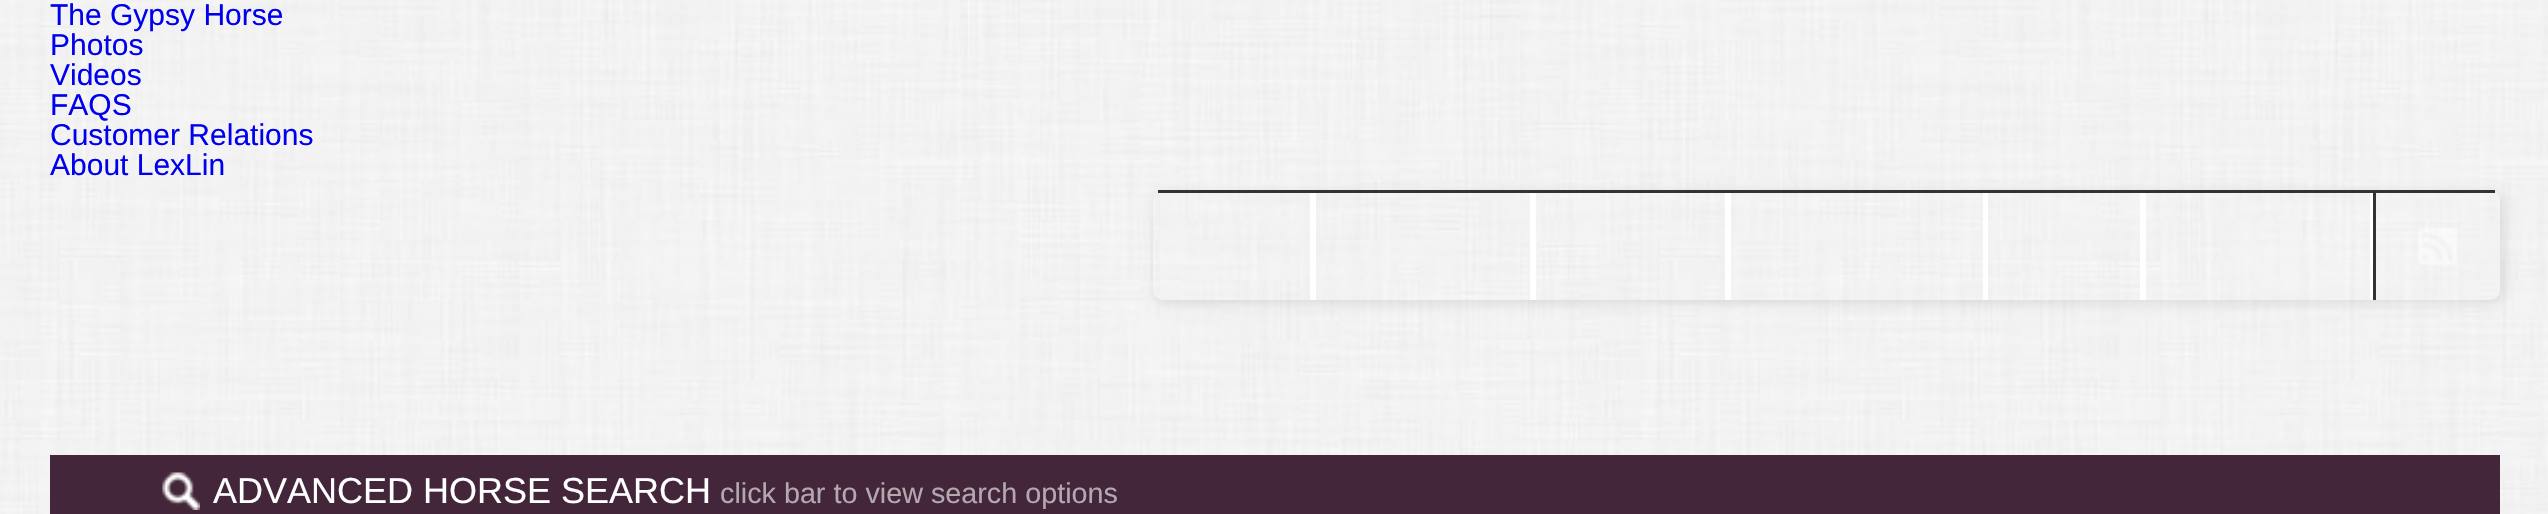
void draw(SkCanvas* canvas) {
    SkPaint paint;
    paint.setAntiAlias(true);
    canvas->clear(0xFFFFFFFF);
    canvas->drawImageRect(SkImages::DeferredFromEncodedData(SkData::MakeFromFileName("img1.png")), SkRect::MakeXYWH(0, 0, 2548, 514), SkSamplingOptions());
    SkFont font1(fontMgr->matchFamilyStyle("Liberation Sans", SkFontStyle::Normal()), 30);
    font1.setSubpixel(true);
    paint.setColor(0xFF0000EE);
    canvas->drawString("The Gypsy Horse", 50, 25, font1, paint);
    canvas->drawString("Photos", 50, 55, font1, paint);
    canvas->drawString("Videos", 50, 85, font1, paint);
    canvas->drawString("FAQS", 50, 115, font1, paint);
    canvas->drawString("Customer Relations", 50, 145, font1, paint);
    canvas->drawString("About LexLin", 50, 175, font1, paint);
    canvas->save();
    canvas->clipPath(SkPathBuilder(SkPathFillType::kEvenOdd).moveTo(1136, 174).lineTo(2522, 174).lineTo(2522, 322).lineTo(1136, 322).close().moveTo(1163, 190).lineTo(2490, 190).cubicTo(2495.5f, 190, 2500, 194.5f, 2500, 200).lineTo(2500, 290).cubicTo(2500, 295.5f, 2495.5f, 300, 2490, 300).lineTo(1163, 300).cubicTo(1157.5f, 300, 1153, 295.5f, 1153, 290).lineTo(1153, 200).cubicTo(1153, 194.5f, 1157.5f, 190, 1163, 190).close().detach(), true);
    paint.setColor(0x1A000000);
    paint.setMaskFilter(SkMaskFilter::MakeBlur(kNormal_SkBlurStyle, 6));
    canvas->drawRoundRect(SkRect::MakeXYWH(1155, 193, 1348, 110), 10, 10, paint);
    paint.setMaskFilter(nullptr);
    canvas->restore();
    paint.setColor(0xFF333333);
    canvas->drawRect(SkRect::MakeXYWH(1158, 190, 1337, 3), paint);
    paint.setColor(0xFFFFFFFF);
    canvas->drawRect(SkRect::MakeXYWH(1310, 193, 6, 107), paint);
    canvas->drawRect(SkRect::MakeXYWH(1530, 193, 6, 107), paint);
    canvas->drawRect(SkRect::MakeXYWH(1725, 193, 6, 107), paint);
    canvas->drawRect(SkRect::MakeXYWH(1983, 193, 5, 107), paint);
    canvas->drawRect(SkRect::MakeXYWH(2140, 193, 6, 107), paint);
    canvas->drawRect(SkRect::MakeXYWH(2370, 193, 3, 107), paint);
    paint.setColor(0xFF333333);
    canvas->drawRect(SkRect::MakeXYWH(2373, 193, 3, 107), paint);
    canvas->drawImageRect(SkImages::DeferredFromEncodedData(SkData::MakeFromFileName("img2.png")), SkRect::MakeXYWH(2418, 228, 39, 37), SkSamplingOptions());
    paint.setColor(0xFF43263A);
    canvas->drawRect(SkRect::MakeXYWH(50, 455, 2450, 59), paint);
    canvas->drawImageRect(SkImages::DeferredFromEncodedData(SkData::MakeFromFileName("img3.png")), SkRect::MakeXYWH(162, 472, 38, 38), SkSamplingOptions());
    SkFont font2(fontMgr->matchFamilyStyle("Liberation Sans", SkFontStyle::Normal()), 36);
    font2.setSubpixel(true);
    paint.setColor(0xFFFFFFFF);
    canvas->drawString("ADVANCED HORSE SEARCH", 213, 503, font2, paint);
    SkFont font3(fontMgr->matchFamilyStyle("Liberation Sans", SkFontStyle::Normal()), 28.75f);
    font3.setSubpixel(true);
    paint.setColor(0xFFB4A8B0);
    canvas->drawString("click bar to view search options", 720, 503, font3, paint);
}
